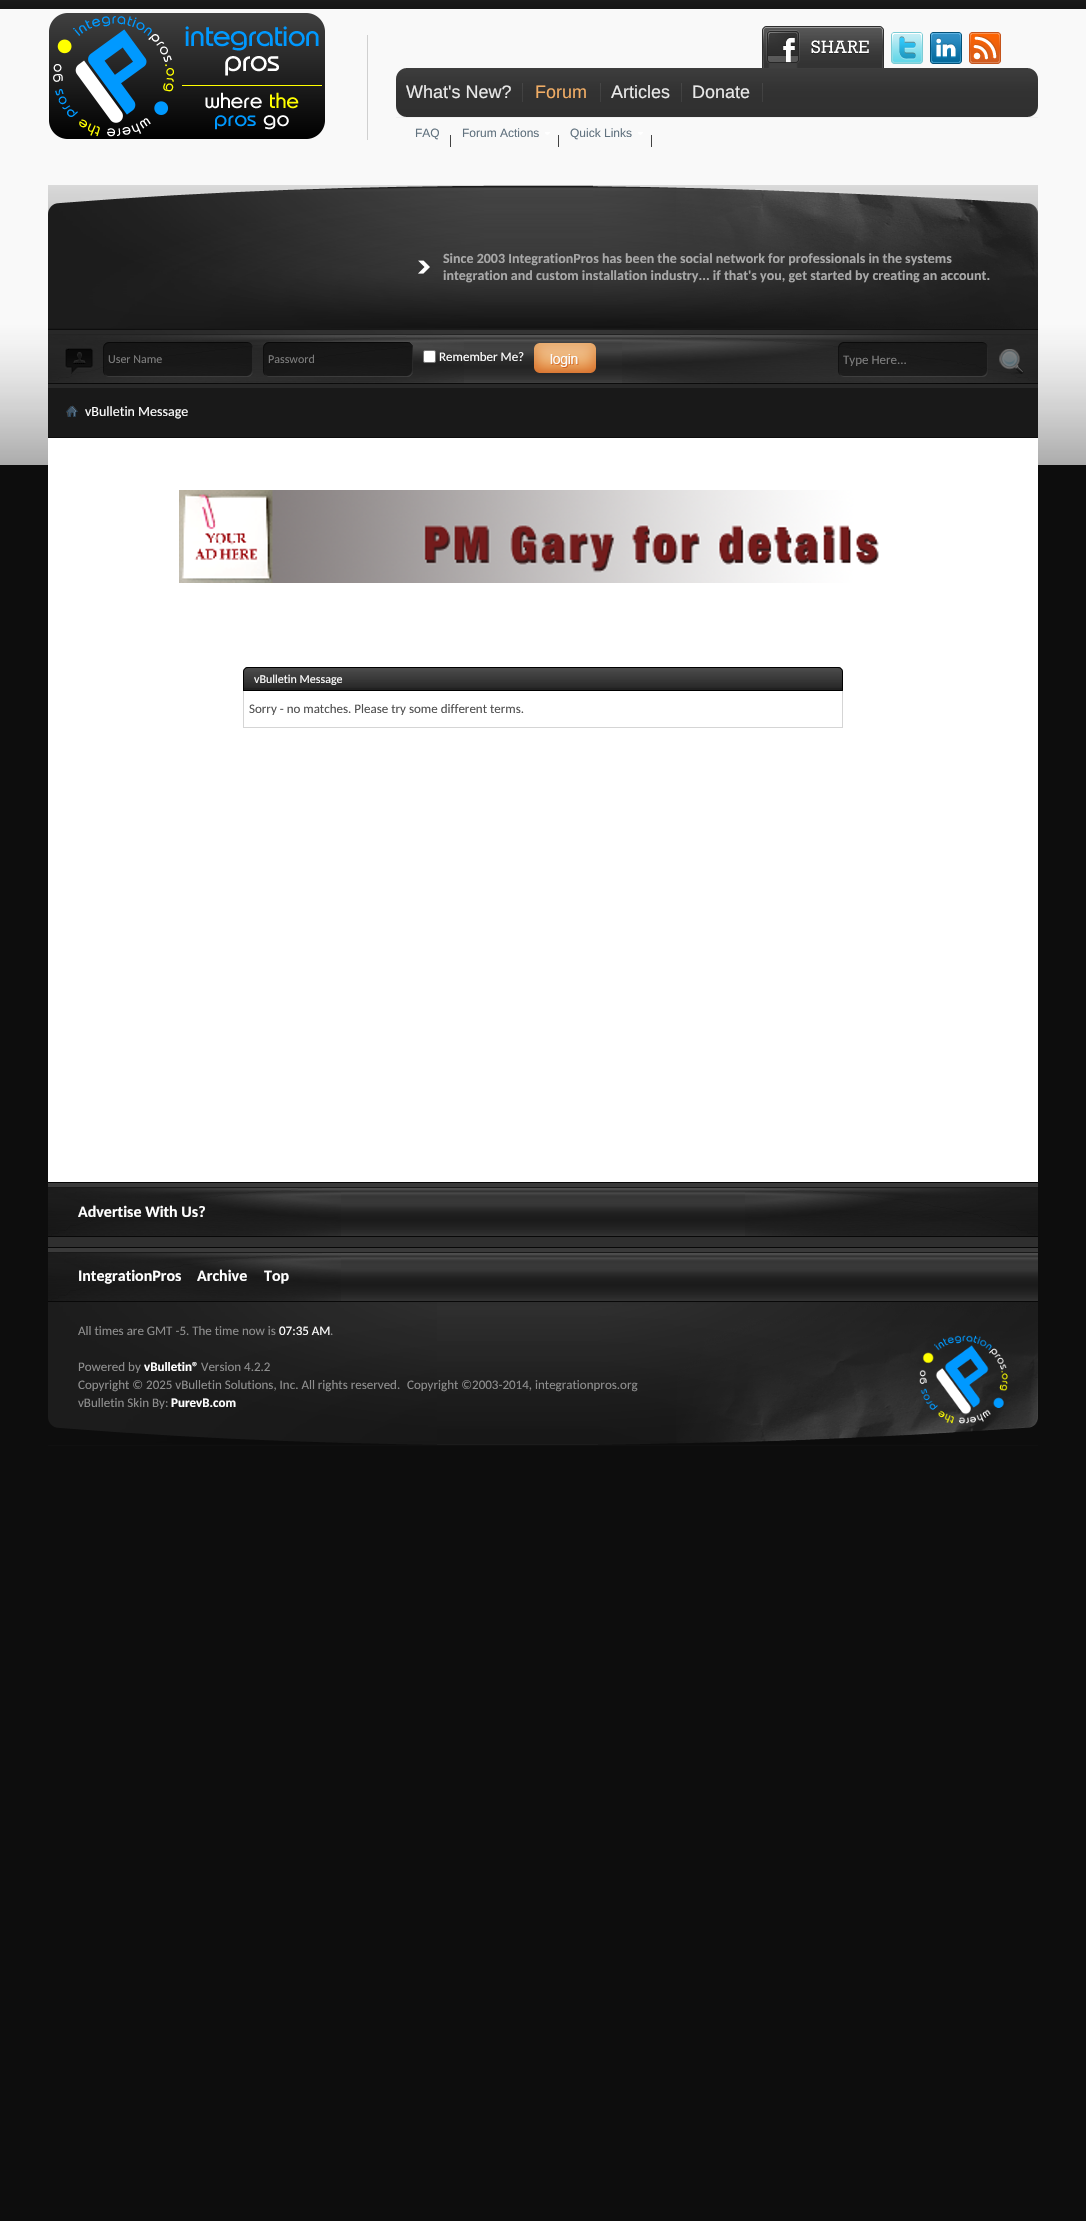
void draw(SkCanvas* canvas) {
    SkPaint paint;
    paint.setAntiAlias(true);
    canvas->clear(0xFF0D0D0D);
    canvas->drawImageRect(SkImages::DeferredFromEncodedData(SkData::MakeFromFileName("img1.png")), SkRect::MakeXYWH(0, 0, 1086, 465), SkSamplingOptions());
    paint.setColor(0xFFD0D0D0);
    canvas->drawRect(SkRect::MakeXYWH(367, 35, 1, 105), paint);
    canvas->drawImageRect(SkImages::DeferredFromEncodedData(SkData::MakeFromFileName("img2.png")), SkRect::MakeXYWH(49, 13, 276, 126), SkSamplingOptions());
    canvas->drawImageRect(SkImages::DeferredFromEncodedData(SkData::MakeFromFileName("img3.png")), SkRect::MakeXYWH(762, 26, 122, 42), SkSamplingOptions());
    canvas->drawImageRect(SkImages::DeferredFromEncodedData(SkData::MakeFromFileName("img4.png")), SkRect::MakeXYWH(891, 32, 32, 32), SkSamplingOptions());
    canvas->drawImageRect(SkImages::DeferredFromEncodedData(SkData::MakeFromFileName("img5.png")), SkRect::MakeXYWH(930, 32, 32, 32), SkSamplingOptions());
    canvas->drawImageRect(SkImages::DeferredFromEncodedData(SkData::MakeFromFileName("img6.png")), SkRect::MakeXYWH(969, 32, 32, 32), SkSamplingOptions());
    canvas->drawImageRect(SkImages::DeferredFromEncodedData(SkData::MakeFromFileName("img7.png")), SkRect::MakeXYWH(396, 68, 642, 50), SkSamplingOptions());
    canvas->drawImageRect(SkImages::DeferredFromEncodedData(SkData::MakeFromFileName("img8.png")), SkRect::MakeXYWH(396, 68, 10, 49), SkSamplingOptions());
    canvas->drawImageRect(SkImages::DeferredFromEncodedData(SkData::MakeFromFileName("img9.png")), SkRect::MakeXYWH(1028, 68, 10, 49), SkSamplingOptions());
    canvas->drawImageRect(SkImages::DeferredFromEncodedData(SkData::MakeFromFileName("img10.png")), SkRect::MakeXYWH(522, 83, 1, 19), SkSamplingOptions());
    SkFont font1(fontMgr->matchFamilyStyle("Liberation Sans", SkFontStyle::Normal()), 18);
    font1.setSubpixel(true);
    paint.setColor(0xFFE9E9E9);
    canvas->drawString("What's New?", 406, 98, font1, paint);
    canvas->drawImageRect(SkImages::DeferredFromEncodedData(SkData::MakeFromFileName("img10.png")), SkRect::MakeXYWH(600, 83, 1, 19), SkSamplingOptions());
    paint.setColor(0xFFF1AD65);
    canvas->drawString("Forum", 535, 98, font1, paint);
    canvas->drawImageRect(SkImages::DeferredFromEncodedData(SkData::MakeFromFileName("img10.png")), SkRect::MakeXYWH(681, 83, 1, 19), SkSamplingOptions());
    paint.setColor(0xFFE9E9E9);
    canvas->drawString("Articles", 611, 98, font1, paint);
    canvas->drawImageRect(SkImages::DeferredFromEncodedData(SkData::MakeFromFileName("img10.png")), SkRect::MakeXYWH(762, 83, 1, 19), SkSamplingOptions());
    canvas->drawString("Donate", 692, 98, font1, paint);
    canvas->drawImageRect(SkImages::DeferredFromEncodedData(SkData::MakeFromFileName("img11.png")), SkRect::MakeXYWH(450, 135, 1, 12), SkSamplingOptions());
    SkFont font2(fontMgr->matchFamilyStyle("Liberation Sans", SkFontStyle::Normal()), 12);
    font2.setSubpixel(true);
    paint.setColor(0xFF61727F);
    canvas->drawString("FAQ", 415, 137, font2, paint);
    canvas->drawImageRect(SkImages::DeferredFromEncodedData(SkData::MakeFromFileName("img11.png")), SkRect::MakeXYWH(558, 135, 1, 12), SkSamplingOptions());
    canvas->drawString("Forum Actions", 462, 137, font2, paint);
    canvas->drawImageRect(SkImages::DeferredFromEncodedData(SkData::MakeFromFileName("img12.png")), SkRect::MakeXYWH(545, 132, 5, 3), SkSamplingOptions());
    canvas->drawImageRect(SkImages::DeferredFromEncodedData(SkData::MakeFromFileName("img11.png")), SkRect::MakeXYWH(651, 135, 1, 12), SkSamplingOptions());
    canvas->drawString("Quick Links", 570, 137, font2, paint);
    canvas->drawImageRect(SkImages::DeferredFromEncodedData(SkData::MakeFromFileName("img12.png")), SkRect::MakeXYWH(638, 132, 5, 3), SkSamplingOptions());
    canvas->drawImageRect(SkImages::DeferredFromEncodedData(SkData::MakeFromFileName("img13.png")), SkRect::MakeXYWH(48, 185, 545, 144), SkSamplingOptions());
    canvas->drawImageRect(SkImages::DeferredFromEncodedData(SkData::MakeFromFileName("img14.png")), SkRect::MakeXYWH(48, 185, 436, 143), SkSamplingOptions());
    canvas->drawImageRect(SkImages::DeferredFromEncodedData(SkData::MakeFromFileName("img15.png")), SkRect::MakeXYWH(593, 185, 445, 144), SkSamplingOptions());
    canvas->drawImageRect(SkImages::DeferredFromEncodedData(SkData::MakeFromFileName("img16.png")), SkRect::MakeXYWH(418, 260, 12, 14), SkSamplingOptions());
    SkFont font3(fontMgr->matchFamilyStyle("Carlito", SkFontStyle::Bold()), 14);
    font3.setSubpixel(true);
    paint.setColor(0xFFA9A9A9);
    canvas->drawString("Since 2003 IntegrationPros has been the social network for professionals in the systems", 443, 263, font3, paint);
    canvas->drawString("integration and custom installation industry... if that's you, get started by creating an account.", 443, 280, font3, paint);
    paint.setColor(0xFFFFFFFF);
    canvas->drawRect(SkRect::MakeXYWH(48, 438, 990, 744), paint);
    canvas->drawImageRect(SkImages::DeferredFromEncodedData(SkData::MakeFromFileName("img17.png")), SkRect::MakeXYWH(464, 329, 158, 55), SkSamplingOptions());
    canvas->drawImageRect(SkImages::DeferredFromEncodedData(SkData::MakeFromFileName("img18.png")), SkRect::MakeXYWH(48, 329, 416, 55), SkSamplingOptions());
    canvas->drawImageRect(SkImages::DeferredFromEncodedData(SkData::MakeFromFileName("img19.png")), SkRect::MakeXYWH(622, 329, 416, 55), SkSamplingOptions());
    canvas->drawImageRect(SkImages::DeferredFromEncodedData(SkData::MakeFromFileName("img20.png")), SkRect::MakeXYWH(103, 342, 150, 35), SkSamplingOptions());
    SkFont font4(fontMgr->matchFamilyStyle("Carlito", SkFontStyle::Normal()), 12);
    font4.setSubpixel(true);
    paint.setColor(0xFF7D7D7D);
    canvas->drawString("User Name", 108, 363, font4, paint);
    canvas->drawImageRect(SkImages::DeferredFromEncodedData(SkData::MakeFromFileName("img21.png")), SkRect::MakeXYWH(263, 342, 150, 35), SkSamplingOptions());
    canvas->drawString("Password", 268, 363, font4, paint);
    paint.setColor(0xFFFFFFFF);
    canvas->drawRoundRect(SkRect::MakeXYWH(423.5f, 350.5f, 12, 12), 1.5f, 1.5f, paint);
    paint.setStyle(SkPaint::kStroke_Style);
    paint.setStrokeWidth(1);
    paint.setColor(0xFF767676);
    canvas->drawRoundRect(SkRect::MakeXYWH(423.5f, 350.5f, 12, 12), 1.5f, 1.5f, paint);
    SkFont font5(fontMgr->matchFamilyStyle("Carlito", SkFontStyle::Normal()), 13);
    font5.setSubpixel(true);
    paint.setStyle(SkPaint::kFill_Style);
    paint.setColor(0xFFFFFFFF);
    canvas->drawString("Remember Me?", 439, 361, font5, paint);
    canvas->drawImageRect(SkImages::DeferredFromEncodedData(SkData::MakeFromFileName("img22.png")), SkRect::MakeXYWH(534, 343, 62, 30), SkSamplingOptions());
    canvas->drawImageRect(SkImages::DeferredFromEncodedData(SkData::MakeFromFileName("img23.png")), SkRect::MakeXYWH(838, 342, 150, 35), SkSamplingOptions());
    paint.setColor(0xFF7D7D7D);
    canvas->drawString("Type Here...", 843, 364, font5, paint);
    canvas->drawImageRect(SkImages::DeferredFromEncodedData(SkData::MakeFromFileName("img24.png")), SkRect::MakeXYWH(999, 349, 25, 25), SkSamplingOptions());
    canvas->drawImageRect(SkImages::DeferredFromEncodedData(SkData::MakeFromFileName("img25.png")), SkRect::MakeXYWH(48, 384, 990, 53), SkSamplingOptions());
    paint.setColor(0xFF0D0D0D);
    canvas->drawRect(SkRect::MakeXYWH(48, 437, 990, 1), paint);
    canvas->drawImageRect(SkImages::DeferredFromEncodedData(SkData::MakeFromFileName("img26.png")), SkRect::MakeXYWH(66, 405, 12, 12), SkSamplingOptions());
    SkFont font6(fontMgr->matchFamilyStyle("Carlito", SkFontStyle::Normal()), 14);
    font6.setSubpixel(true);
    paint.setColor(0xFFFFFFFF);
    canvas->drawString("vBulletin Message", 85, 416, font6, paint);
    canvas->drawImageRect(SkImages::DeferredFromEncodedData(SkData::MakeFromFileName("img27.png")), SkRect::MakeXYWH(179, 490, 700, 93), SkSamplingOptions());
    paint.setColor(0xFF212121);
    canvas->drawPath(SkPathBuilder().moveTo(248, 667).lineTo(838, 667).cubicTo(841, 667, 843, 669, 843, 672).lineTo(843, 691).lineTo(243, 691).lineTo(243, 672).cubicTo(243, 669, 245, 667, 248, 667).close().detach(), paint);
    canvas->drawImageRect(SkImages::DeferredFromEncodedData(SkData::MakeFromFileName("img28.png")), SkRect::MakeXYWH(243, 668, 600, 20), SkSamplingOptions());
    paint.setStyle(SkPaint::kStroke_Style);
    paint.setColor(0xFF000000);
    canvas->drawPath(SkPathBuilder().moveTo(248, 667.5f).lineTo(838, 667.5f).cubicTo(840.5f, 667.5f, 842.5f, 669.5f, 842.5f, 672).lineTo(842.5f, 690.5f).lineTo(243.5f, 690.5f).lineTo(243.5f, 672).cubicTo(243.5f, 669.5f, 245.5f, 667.5f, 248, 667.5f).close().detach(), paint);
    paint.setStyle(SkPaint::kFill_Style);
    paint.setColor(0xFFFFFFFF);
    canvas->drawString("vBulletin Message", 254, 683, font4, paint);
    paint.setColor(0xFFD5D5D5);
    canvas->drawRect(SkRect::MakeXYWH(842, 691, 1, 37), paint);
    canvas->drawRect(SkRect::MakeXYWH(243, 727, 600, 1), paint);
    canvas->drawRect(SkRect::MakeXYWH(243, 691, 1, 37), paint);
    paint.setColor(0xFF515151);
    canvas->drawString("Sorry - no matches. Please try some different terms.", 249, 713, font5, paint);
    canvas->drawImageRect(SkImages::DeferredFromEncodedData(SkData::MakeFromFileName("img29.png")), SkRect::MakeXYWH(48, 1183, 990, 53), SkSamplingOptions());
    paint.setColor(0xFF080808);
    canvas->drawRect(SkRect::MakeXYWH(48, 1182, 990, 1), paint);
    canvas->drawRect(SkRect::MakeXYWH(48, 1236, 990, 1), paint);
    canvas->drawImageRect(SkImages::DeferredFromEncodedData(SkData::MakeFromFileName("img30.png")), SkRect::MakeXYWH(48, 1188, 293, 48), SkSamplingOptions());
    canvas->drawImageRect(SkImages::DeferredFromEncodedData(SkData::MakeFromFileName("img31.png")), SkRect::MakeXYWH(745, 1188, 293, 48), SkSamplingOptions());
    SkFont font7(fontMgr->matchFamilyStyle("Carlito", SkFontStyle::Bold()), 16);
    font7.setSubpixel(true);
    paint.setColor(0xFFFFFFFF);
    canvas->drawString("Advertise With Us?", 78, 1217, font7, paint);
    paint.setColor(0xFF2F2F2F);
    canvas->drawRect(SkRect::MakeXYWH(48, 1237, 990, 10), paint);
    canvas->drawImageRect(SkImages::DeferredFromEncodedData(SkData::MakeFromFileName("img29.png")), SkRect::MakeXYWH(48, 1248, 990, 53), SkSamplingOptions());
    paint.setColor(0xFF080808);
    canvas->drawRect(SkRect::MakeXYWH(48, 1247, 990, 1), paint);
    canvas->drawRect(SkRect::MakeXYWH(48, 1301, 990, 1), paint);
    canvas->drawImageRect(SkImages::DeferredFromEncodedData(SkData::MakeFromFileName("img30.png")), SkRect::MakeXYWH(48, 1253, 293, 48), SkSamplingOptions());
    paint.setColor(0xFFFFFFFF);
    canvas->drawString("IntegrationPros", 78, 1281, font7, paint);
    canvas->drawString("Archive", 197, 1281, font7, paint);
    canvas->drawString("Top", 264, 1281, font7, paint);
    canvas->drawImageRect(SkImages::DeferredFromEncodedData(SkData::MakeFromFileName("img32.png")), SkRect::MakeXYWH(48, 1302, 990, 144), SkSamplingOptions());
    canvas->drawImageRect(SkImages::DeferredFromEncodedData(SkData::MakeFromFileName("img33.png")), SkRect::MakeXYWH(48, 1302, 389, 143), SkSamplingOptions());
    canvas->drawImageRect(SkImages::DeferredFromEncodedData(SkData::MakeFromFileName("img34.png")), SkRect::MakeXYWH(598, 1302, 440, 143), SkSamplingOptions());
    paint.setColor(0xFF8E8E8E);
    canvas->drawString("All times are GMT -5. The time now is", 78, 1335, font5, paint);
    paint.setColor(0xFFFFFFFF);
    canvas->drawString("07:35 AM", 279, 1335, font5, paint);
    paint.setColor(0xFF8E8E8E);
    canvas->drawString(".", 330, 1335, font5, paint);
    canvas->drawString("Powered by", 78, 1371, font5, paint);
    SkFont font8(fontMgr->matchFamilyStyle("Carlito", SkFontStyle::Bold()), 13);
    font8.setSubpixel(true);
    paint.setColor(0xFFFFFFFF);
    canvas->drawString("vBulletin®", 144, 1371, font8, paint);
    paint.setColor(0xFF8E8E8E);
    canvas->drawString("Version 4.2.2", 201, 1371, font5, paint);
    canvas->drawString("Copyright © 2025 vBulletin Solutions, Inc. All rights reserved.", 78, 1389, font5, paint);
    canvas->drawString("Copyright ©2003-2014, integrationpros.org", 407, 1389, font5, paint);
    canvas->drawString("vBulletin Skin By:", 78, 1407, font5, paint);
    paint.setColor(0xFFFFFFFF);
    canvas->drawString("PurevB.com", 171, 1407, font8, paint);
    canvas->drawImageRect(SkImages::DeferredFromEncodedData(SkData::MakeFromFileName("img35.png")), SkRect::MakeXYWH(919, 1335, 89, 89), SkSamplingOptions());
}
